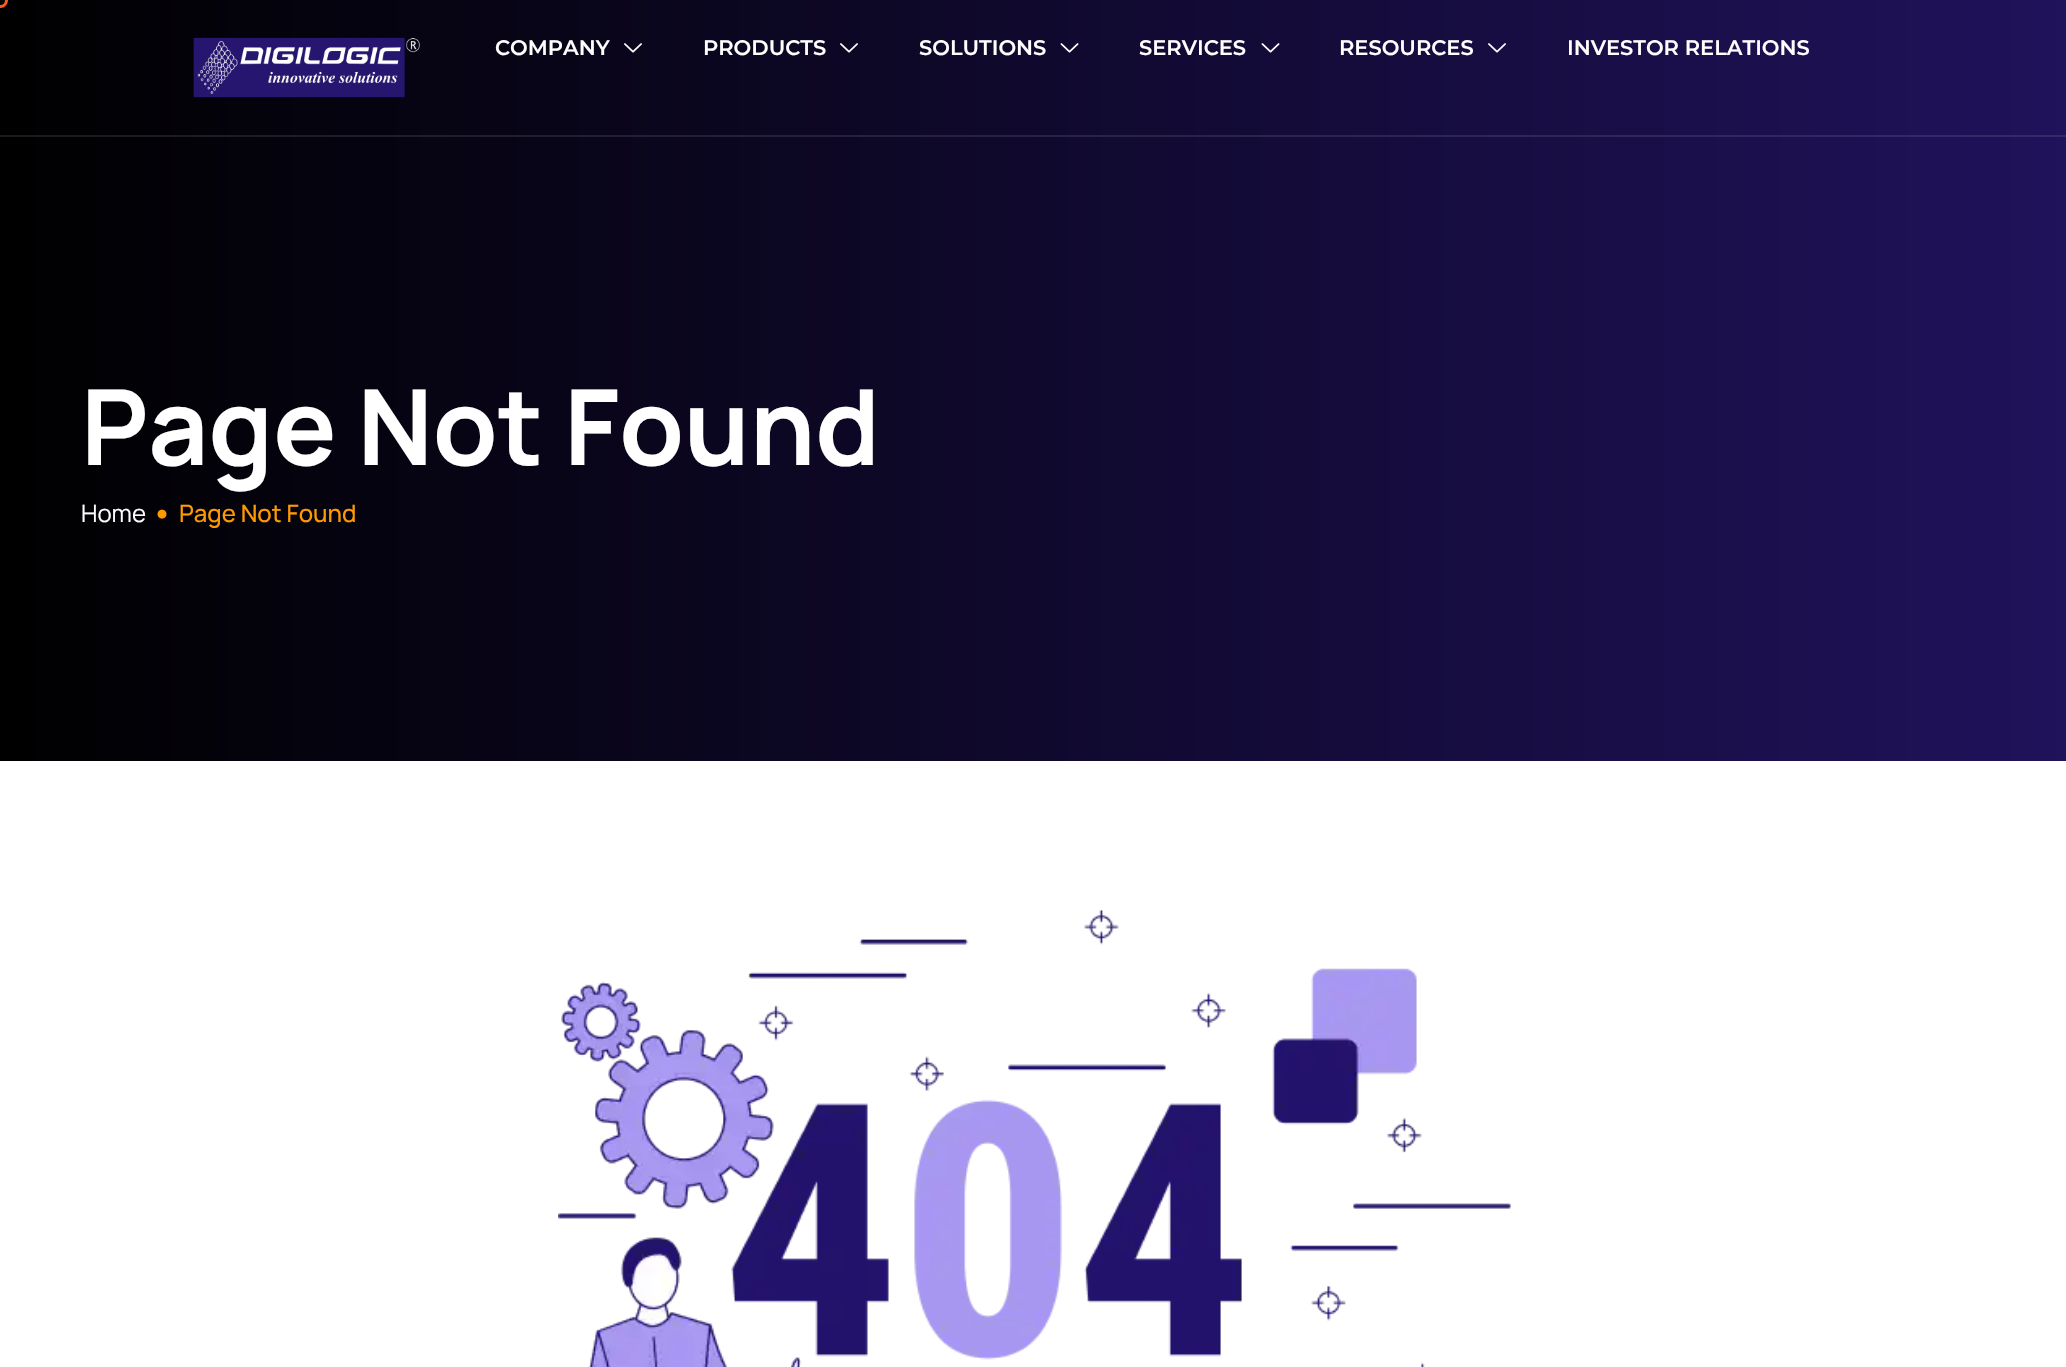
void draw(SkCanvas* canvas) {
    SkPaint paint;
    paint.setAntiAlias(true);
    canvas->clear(0xFFFFFFFF);
    {
        const SkColor colors[] = {0xFF20125B, 0xFF000000};
        const float stops[] = {0, 1};
        const SkPoint ends[] = {{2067, 370}, {0, 370}};
        paint.setShader(SkGradientShader::MakeLinear(ends, colors, stops, 2, SkTileMode::kClamp));
        paint.setAlpha(255);
    }
    canvas->drawRect(SkRect::MakeXYWH(0, 0, 2066, 761), paint);
    paint.setStyle(SkPaint::kStroke_Style);
    paint.setStrokeWidth(3);
    paint.setShader(nullptr);
    paint.setColor(0xFFF55E17);
    canvas->drawCircle(0.5f, 0.5f, 6, paint);
    canvas->drawImageRect(SkImages::DeferredFromEncodedData(SkData::MakeFromFileName("img1.png")), SkRect::MakeXYWH(193, 37, 227, 61), SkSamplingOptions());
    SkFont font1(fontMgr->matchFamilyStyle("Montserrat", SkFontStyle(600, SkFontStyle::kNormal_Width, SkFontStyle::kUpright_Slant)), 21);
    font1.setSubpixel(true);
    paint.setStyle(SkPaint::kFill_Style);
    paint.setColor(0xFFFFFFFF);
    canvas->drawString("COMPANY", 495, 55, font1, paint);
    canvas->drawImageRect(SkImages::DeferredFromEncodedData(SkData::MakeFromFileName("img2.png")), SkRect::MakeXYWH(624, 43, 18, 10), SkSamplingOptions());
    canvas->drawString("PRODUCTS", 703, 55, font1, paint);
    canvas->drawImageRect(SkImages::DeferredFromEncodedData(SkData::MakeFromFileName("img3.png")), SkRect::MakeXYWH(840, 43, 18, 10), SkSamplingOptions());
    canvas->drawString("SOLUTIONS", 919, 55, font1, paint);
    canvas->drawImageRect(SkImages::DeferredFromEncodedData(SkData::MakeFromFileName("img4.png")), SkRect::MakeXYWH(1060, 43, 19, 10), SkSamplingOptions());
    canvas->drawString("SERVICES", 1139, 55, font1, paint);
    canvas->drawImageRect(SkImages::DeferredFromEncodedData(SkData::MakeFromFileName("img5.png")), SkRect::MakeXYWH(1261, 43, 19, 10), SkSamplingOptions());
    canvas->drawString("RESOURCES", 1339, 55, font1, paint);
    canvas->drawImageRect(SkImages::DeferredFromEncodedData(SkData::MakeFromFileName("img6.png")), SkRect::MakeXYWH(1488, 43, 18, 10), SkSamplingOptions());
    canvas->drawString("INVESTOR RELATIONS", 1567, 55, font1, paint);
    {
        const SkColor colors[] = {0xFF362A6B, 0xFF1A1A1A};
        const float stops[] = {0, 1};
        const SkPoint ends[] = {{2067, 370}, {0, 370}};
        paint.setShader(SkGradientShader::MakeLinear(ends, colors, stops, 2, SkTileMode::kClamp));
        paint.setAlpha(255);
    }
    canvas->drawRect(SkRect::MakeXYWH(0, 135, 2066, 2), paint);
    SkFont font2(fontMgr->matchFamilyStyle("Manrope", SkFontStyle::Bold()), 105);
    font2.setSubpixel(true);
    paint.setShader(nullptr);
    paint.setColor(0xFFFFFFFF);
    canvas->drawString("Page Not Found", 81, 465, font2, paint);
    SkFont font3(fontMgr->matchFamilyStyle("Manrope", SkFontStyle::Normal()), 24);
    font3.setSubpixel(true);
    canvas->drawString("Home", 81, 522, font3, paint);
    canvas->drawImageRect(SkImages::DeferredFromEncodedData(SkData::MakeFromFileName("img7.png")), SkRect::MakeXYWH(157, 509, 10, 10), SkSamplingOptions());
    SkFont font4(fontMgr->matchFamilyStyle("Manrope", SkFontStyle(500, SkFontStyle::kNormal_Width, SkFontStyle::kUpright_Slant)), 24);
    font4.setSubpixel(true);
    paint.setColor(0xFFFF9900);
    canvas->drawString("Page Not Found", 179, 522, font4, paint);
    canvas->drawImageRect(SkImages::DeferredFromEncodedData(SkData::MakeFromFileName("img8.png")), SkRect::MakeXYWH(558, 910, 953, 457), SkSamplingOptions());
}
